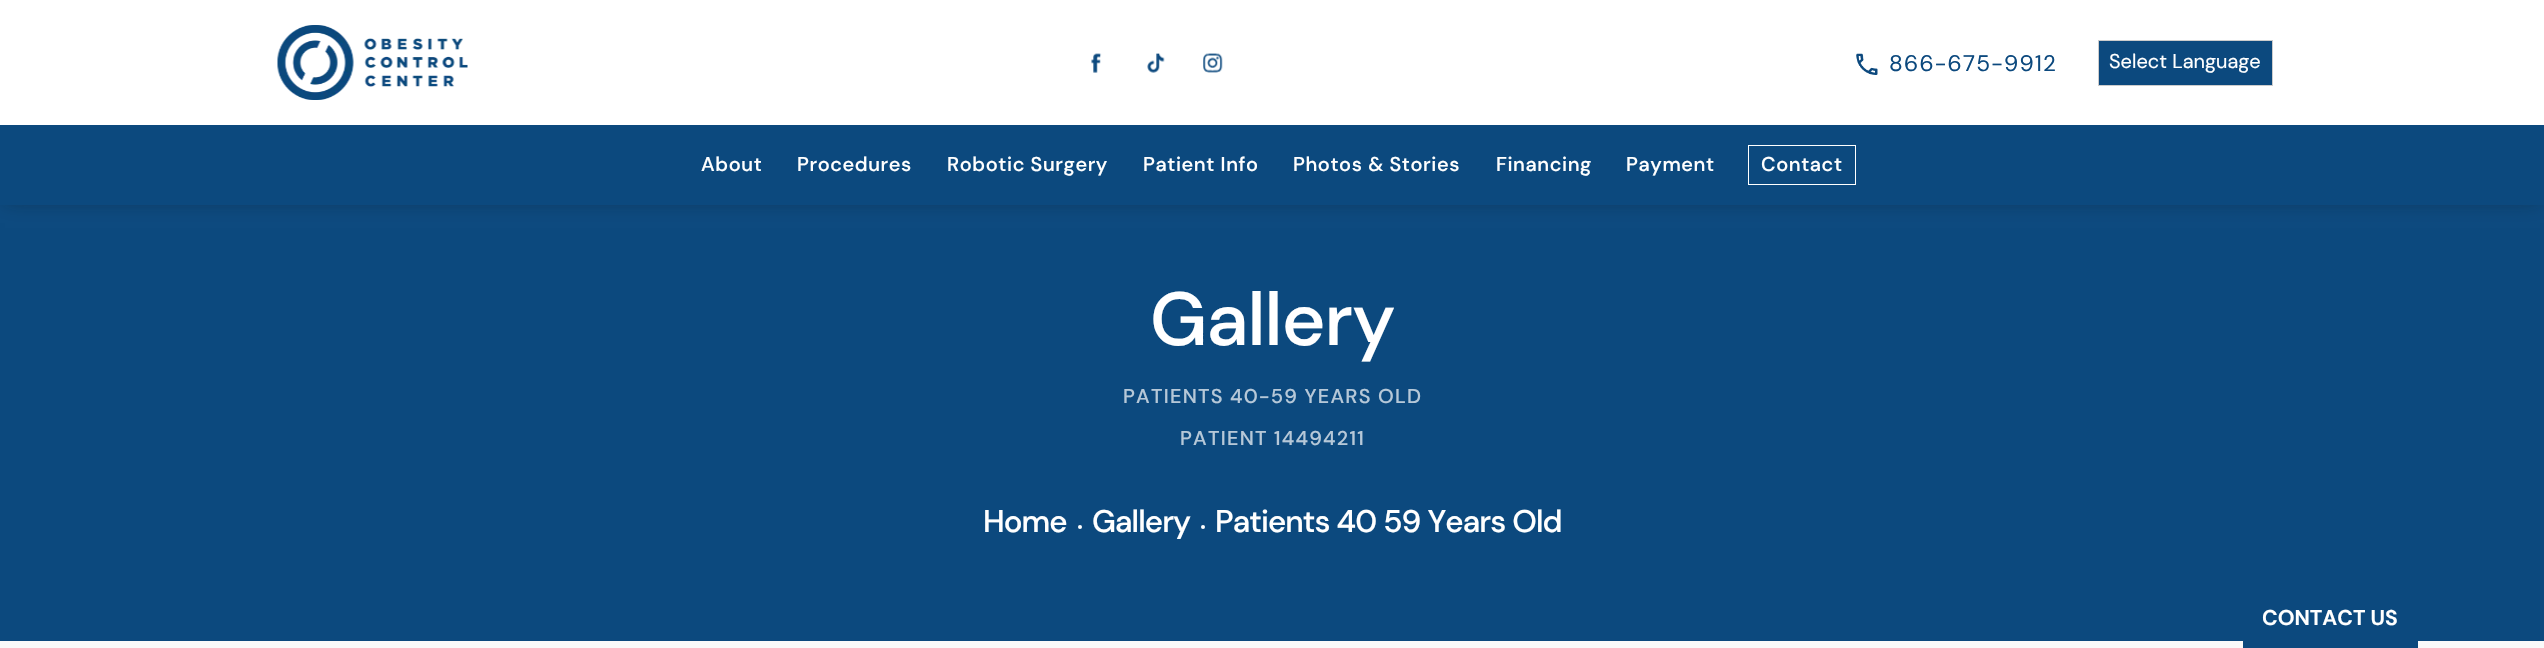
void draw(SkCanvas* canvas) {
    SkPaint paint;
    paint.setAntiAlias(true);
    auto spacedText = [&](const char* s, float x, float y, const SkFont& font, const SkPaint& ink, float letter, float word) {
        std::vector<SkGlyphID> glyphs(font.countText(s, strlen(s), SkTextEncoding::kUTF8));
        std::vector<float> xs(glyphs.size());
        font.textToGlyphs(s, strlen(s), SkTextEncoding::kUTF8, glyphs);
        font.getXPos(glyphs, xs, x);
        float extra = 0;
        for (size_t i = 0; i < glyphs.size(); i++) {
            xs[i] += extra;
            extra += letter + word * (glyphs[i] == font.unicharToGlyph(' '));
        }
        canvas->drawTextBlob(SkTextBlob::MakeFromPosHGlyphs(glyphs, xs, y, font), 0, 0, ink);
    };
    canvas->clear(0xFFFAFAFA);
    paint.setColor(0xFF0C497E);
    canvas->drawRect(SkRect::MakeXYWH(0, 205, 2544, 436), paint);
    paint.setColor(0x66141414);
    paint.setMaskFilter(SkMaskFilter::MakeBlur(kNormal_SkBlurStyle, 9.5f));
    canvas->drawRect(SkRect::MakeXYWH(5, 5, 2535, 195), paint);
    paint.setMaskFilter(nullptr);
    paint.setColor(0xFFFFFFFF);
    canvas->drawRect(SkRect::MakeXYWH(0, 0, 2544, 125), paint);
    canvas->drawImageRect(SkImages::DeferredFromEncodedData(SkData::MakeFromFileName("img1.png")), SkRect::MakeXYWH(277, 25, 191, 75), SkSamplingOptions());
    canvas->drawImageRect(SkImages::DeferredFromEncodedData(SkData::MakeFromFileName("img2.png")), SkRect::MakeXYWH(1091, 53, 11, 20), SkSamplingOptions());
    canvas->drawImageRect(SkImages::DeferredFromEncodedData(SkData::MakeFromFileName("img3.png")), SkRect::MakeXYWH(1147, 53, 18, 20), SkSamplingOptions());
    canvas->drawImageRect(SkImages::DeferredFromEncodedData(SkData::MakeFromFileName("img4.png")), SkRect::MakeXYWH(1203, 53, 20, 20), SkSamplingOptions());
    canvas->drawImageRect(SkImages::DeferredFromEncodedData(SkData::MakeFromFileName("img5.png")), SkRect::MakeXYWH(1856, 53, 22, 22), SkSamplingOptions());
    SkFont font1(fontMgr->matchFamilyStyle("DM Sans", SkFontStyle::Normal()), 22.5f);
    font1.setSubpixel(true);
    paint.setColor(0xFF0C497E);
    spacedText("866-675-9912", 1889, 71, font1, paint, 1.25f, 0);
    canvas->drawRect(SkRect::MakeXYWH(2098.5f, 40.5f, 174, 45), paint);
    paint.setStyle(SkPaint::kStroke_Style);
    paint.setStrokeWidth(1);
    paint.setColor(0xFFCCCCCC);
    canvas->drawRect(SkRect::MakeXYWH(2098.5f, 40.5f, 174, 45), paint);
    SkFont font2(fontMgr->matchFamilyStyle("DM Sans", SkFontStyle::Normal()), 20);
    font2.setSubpixel(true);
    paint.setStyle(SkPaint::kFill_Style);
    paint.setColor(0xFFFFFFFF);
    canvas->drawString("Select Language", 2109, 68, font2, paint);
    paint.setColor(0xFF0C497E);
    canvas->drawRect(SkRect::MakeXYWH(0, 125, 2544, 80), paint);
    SkFont font3(fontMgr->matchFamilyStyle("DM Sans", SkFontStyle(500, SkFontStyle::kNormal_Width, SkFontStyle::kUpright_Slant)), 20);
    font3.setSubpixel(true);
    paint.setColor(0xFFFFFFFF);
    spacedText("About", 701, 171, font3, paint, 0.6f, 0);
    spacedText("Procedures", 797, 171, font3, paint, 0.6f, 0);
    spacedText("Robotic Surgery", 947, 171, font3, paint, 0.6f, 0);
    spacedText("Patient Info", 1143, 171, font3, paint, 0.6f, 0);
    spacedText("Photos & Stories", 1293, 171, font3, paint, 0.6f, 0);
    spacedText("Financing", 1496, 171, font3, paint, 0.6f, 0);
    spacedText("Payment", 1626, 171, font3, paint, 0.6f, 0);
    paint.setStyle(SkPaint::kStroke_Style);
    canvas->drawRect(SkRect::MakeXYWH(1748.5f, 145.5f, 107, 39), paint);
    paint.setStyle(SkPaint::kFill_Style);
    spacedText("Contact", 1761, 171, font3, paint, 0.6f, 0);
    SkFont font4(fontMgr->matchFamilyStyle("DM Sans", SkFontStyle(500, SkFontStyle::kNormal_Width, SkFontStyle::kUpright_Slant)), 75);
    font4.setSubpixel(true);
    spacedText("Gallery", 1150, 345, font4, paint, -0.9f, 0);
    paint.setColor(0xFFB6C8D8);
    spacedText("PATIENTS 40-59 YEARS OLD", 1123, 403, font3, paint, 1.25f, 0);
    spacedText("PATIENT 14494211", 1180, 445, font3, paint, 1.25f, 0);
    SkFont font5(fontMgr->matchFamilyStyle("DM Sans", SkFontStyle(500, SkFontStyle::kNormal_Width, SkFontStyle::kUpright_Slant)), 31.25f);
    font5.setSubpixel(true);
    paint.setColor(0xFFFFFFFF);
    spacedText("Home", 983, 532, font5, paint, -0.9f, 0);
    canvas->drawCircle(1080, 527, 2, paint);
    spacedText("Gallery", 1092, 532, font5, paint, -0.9f, 0);
    canvas->drawCircle(1203, 527, 2, paint);
    spacedText("Patients 40 59 Years Old", 1215, 532, font5, paint, -0.9f, 0);
    paint.setColor(0xFF0C497E);
    canvas->drawPath(SkPathBuilder().moveTo(2245.5f, 588).lineTo(2415.5f, 588).cubicTo(2417, 588, 2418, 589, 2418, 590.5f).lineTo(2418, 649).lineTo(2243, 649).lineTo(2243, 590.5f).cubicTo(2243, 589, 2244, 588, 2245.5f, 588).close().detach(), paint);
    SkFont font6(fontMgr->matchFamilyStyle("DM Sans", SkFontStyle::Bold()), 21.25f);
    font6.setSubpixel(true);
    paint.setColor(0xFFFFFFFF);
    canvas->drawString("CONTACT US", 2262, 625, font6, paint);
}
